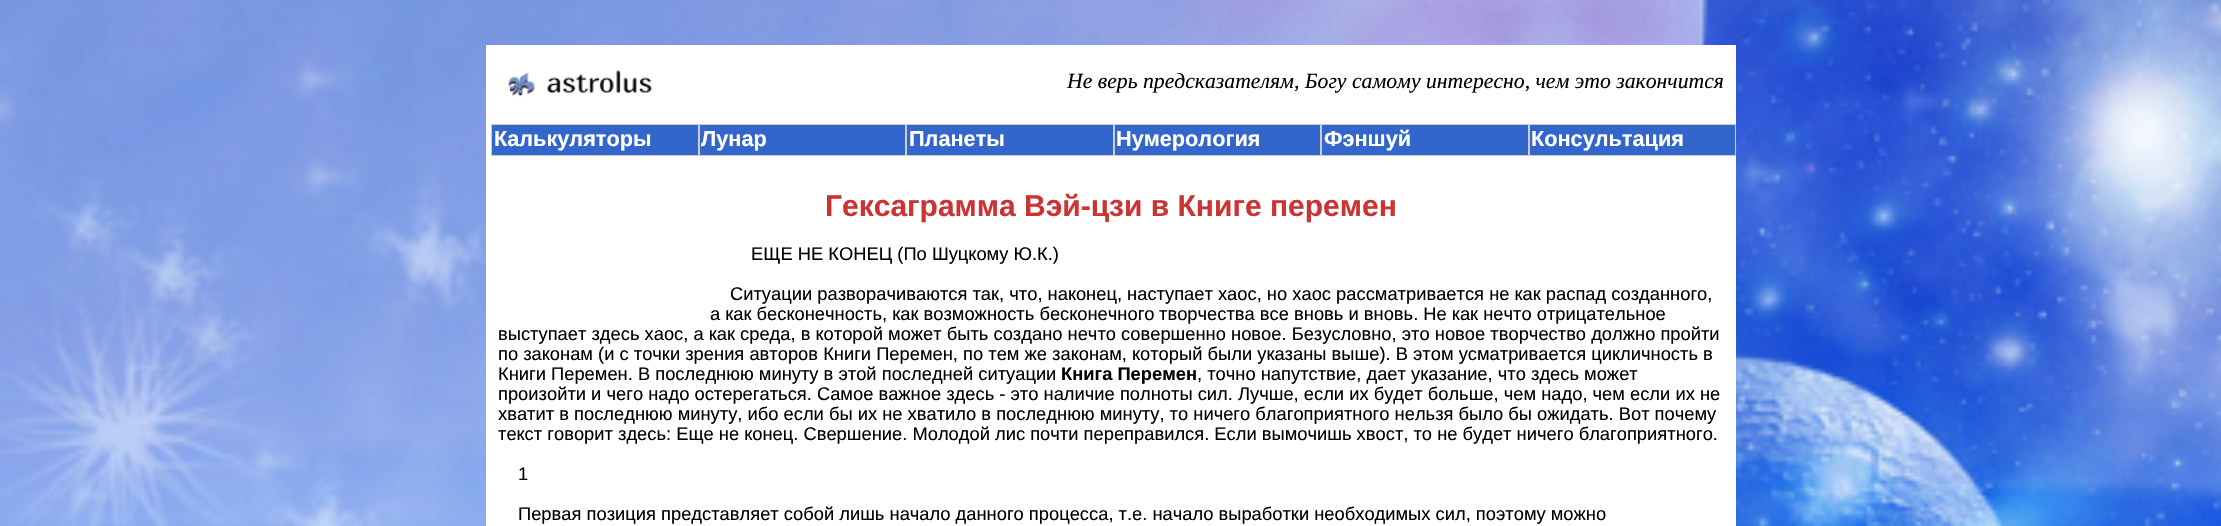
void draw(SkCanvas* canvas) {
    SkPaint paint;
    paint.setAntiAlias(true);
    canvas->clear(0xFFFFFFFF);
    canvas->drawImageRect(SkImages::DeferredFromEncodedData(SkData::MakeFromFileName("img1.png")), SkRect::MakeXYWH(0, 0, 2221, 526), SkSamplingOptions());
    paint.setColor(0xFFFFFFFF);
    canvas->drawRect(SkRect::MakeXYWH(486, 45, 1250, 481), paint);
    canvas->drawImageRect(SkImages::DeferredFromEncodedData(SkData::MakeFromFileName("img2.png")), SkRect::MakeXYWH(508, 70, 145, 27), SkSamplingOptions());
    SkFont font1(fontMgr->matchFamilyStyle("Liberation Serif", SkFontStyle::Italic()), 21.7f);
    font1.setSubpixel(true);
    paint.setColor(0xFF000000);
    canvas->drawString("Не верь предсказателям, Богу самому интересно, чем это закончится", 1067, 88, font1, paint);
    paint.setColor(0xFF3366CC);
    canvas->drawRect(SkRect::MakeXYWH(491.5f, 124.5f, 207, 31), paint);
    paint.setStyle(SkPaint::kStroke_Style);
    paint.setStrokeWidth(1);
    paint.setColor(0xFFCCCCCC);
    canvas->drawRect(SkRect::MakeXYWH(491.5f, 124.5f, 207, 31), paint);
    SkFont font2(fontMgr->matchFamilyStyle("Liberation Sans", SkFontStyle::Bold()), 21.7f);
    font2.setSubpixel(true);
    paint.setStyle(SkPaint::kFill_Style);
    paint.setColor(0xFFFFFFFF);
    canvas->drawString("Калькуляторы", 494, 146, font2, paint);
    paint.setColor(0xFF3366CC);
    canvas->drawRect(SkRect::MakeXYWH(699.5f, 124.5f, 206, 31), paint);
    paint.setStyle(SkPaint::kStroke_Style);
    paint.setColor(0xFFCCCCCC);
    canvas->drawRect(SkRect::MakeXYWH(699.5f, 124.5f, 206, 31), paint);
    paint.setStyle(SkPaint::kFill_Style);
    paint.setColor(0xFFFFFFFF);
    canvas->drawString("Лунар", 701, 146, font2, paint);
    paint.setColor(0xFF3366CC);
    canvas->drawRect(SkRect::MakeXYWH(906.5f, 124.5f, 207, 31), paint);
    paint.setStyle(SkPaint::kStroke_Style);
    paint.setColor(0xFFCCCCCC);
    canvas->drawRect(SkRect::MakeXYWH(906.5f, 124.5f, 207, 31), paint);
    paint.setStyle(SkPaint::kFill_Style);
    paint.setColor(0xFFFFFFFF);
    canvas->drawString("Планеты", 909, 146, font2, paint);
    paint.setColor(0xFF3366CC);
    canvas->drawRect(SkRect::MakeXYWH(1114.5f, 124.5f, 206, 31), paint);
    paint.setStyle(SkPaint::kStroke_Style);
    paint.setColor(0xFFCCCCCC);
    canvas->drawRect(SkRect::MakeXYWH(1114.5f, 124.5f, 206, 31), paint);
    paint.setStyle(SkPaint::kFill_Style);
    paint.setColor(0xFFFFFFFF);
    canvas->drawString("Нумерология", 1116, 146, font2, paint);
    paint.setColor(0xFF3366CC);
    canvas->drawRect(SkRect::MakeXYWH(1321.5f, 124.5f, 207, 31), paint);
    paint.setStyle(SkPaint::kStroke_Style);
    paint.setColor(0xFFCCCCCC);
    canvas->drawRect(SkRect::MakeXYWH(1321.5f, 124.5f, 207, 31), paint);
    paint.setStyle(SkPaint::kFill_Style);
    paint.setColor(0xFFFFFFFF);
    canvas->drawString("Фэншуй", 1324, 146, font2, paint);
    paint.setColor(0xFF3366CC);
    canvas->drawRect(SkRect::MakeXYWH(1529.5f, 124.5f, 206, 31), paint);
    paint.setStyle(SkPaint::kStroke_Style);
    paint.setColor(0xFFCCCCCC);
    canvas->drawRect(SkRect::MakeXYWH(1529.5f, 124.5f, 206, 31), paint);
    paint.setStyle(SkPaint::kFill_Style);
    paint.setColor(0xFFFFFFFF);
    canvas->drawString("Консультация", 1531, 146, font2, paint);
    SkFont font3(fontMgr->matchFamilyStyle("Liberation Sans", SkFontStyle::Bold()), 30);
    font3.setSubpixel(true);
    paint.setColor(0xFFCC3333);
    canvas->drawString("Гексаграмма Вэй-цзи в Книге перемен", 825, 216, font3, paint);
    SkFont font4(fontMgr->matchFamilyStyle("Liberation Sans", SkFontStyle::Normal()), 18.33f);
    font4.setSubpixel(true);
    paint.setColor(0xFF000000);
    canvas->drawString("ЕЩЕ НЕ КОНЕЦ (По Шуцкому Ю.К.)", 751, 260, font4, paint);
    canvas->drawString("Ситуации разворачиваются так, что, наконец, наступает хаос, но хаос рассматривается не как распад созданного,", 730, 300, font4, paint);
    canvas->drawString("а как бесконечность, как возможность бесконечного", 710, 320, font4, paint);
    canvas->drawString("творчества все вновь и вновь. Не как нечто отрицательное", 1159, 320, font4, paint);
    canvas->drawString("выступает здесь хаос, а как среда, в которой может быть создано нечто совершенно новое. Безусловно, это новое творчество должно пройти", 498, 340, font4, paint);
    canvas->drawString("по законам (и с точки зрения авторов Книги Перемен, по тем же законам, который были указаны выше). В этом усматривается цикличность в", 498, 360, font4, paint);
    canvas->drawString("Книги Перемен. В последнюю минуту в этой последней ситуации", 498, 380, font4, paint);
    SkFont font5(fontMgr->matchFamilyStyle("Liberation Sans", SkFontStyle::Bold()), 18.33f);
    font5.setSubpixel(true);
    canvas->drawString("Книга Перемен", 1061, 380, font5, paint);
    canvas->drawString(", точно напутствие, дает указание, что здесь может", 1197, 380, font4, paint);
    canvas->drawString("произойти и чего надо остерегаться. Самое важное здесь - это наличие полноты сил. Лучше, если их будет больше, чем надо, чем если их не", 498, 400, font4, paint);
    canvas->drawString("хватит в последнюю минуту, ибо если бы их не хватило в последнюю минуту, то ничего благоприятного нельзя было бы ожидать. Вот почему", 498, 420, font4, paint);
    canvas->drawString("текст говорит здесь: Еще не конец. Свершение. Молодой", 498, 440, font4, paint);
    canvas->drawString("лис почти переправился. Если вымочишь хвост, то не будет ничего благоприятного.", 995, 440, font4, paint);
    canvas->drawString("1", 518, 480, font4, paint);
    canvas->drawString("Первая позиция представляет собой лишь начало данного процесса, т.е. начало выработки необходимых сил, поэтому можно", 518, 520, font4, paint);
}
